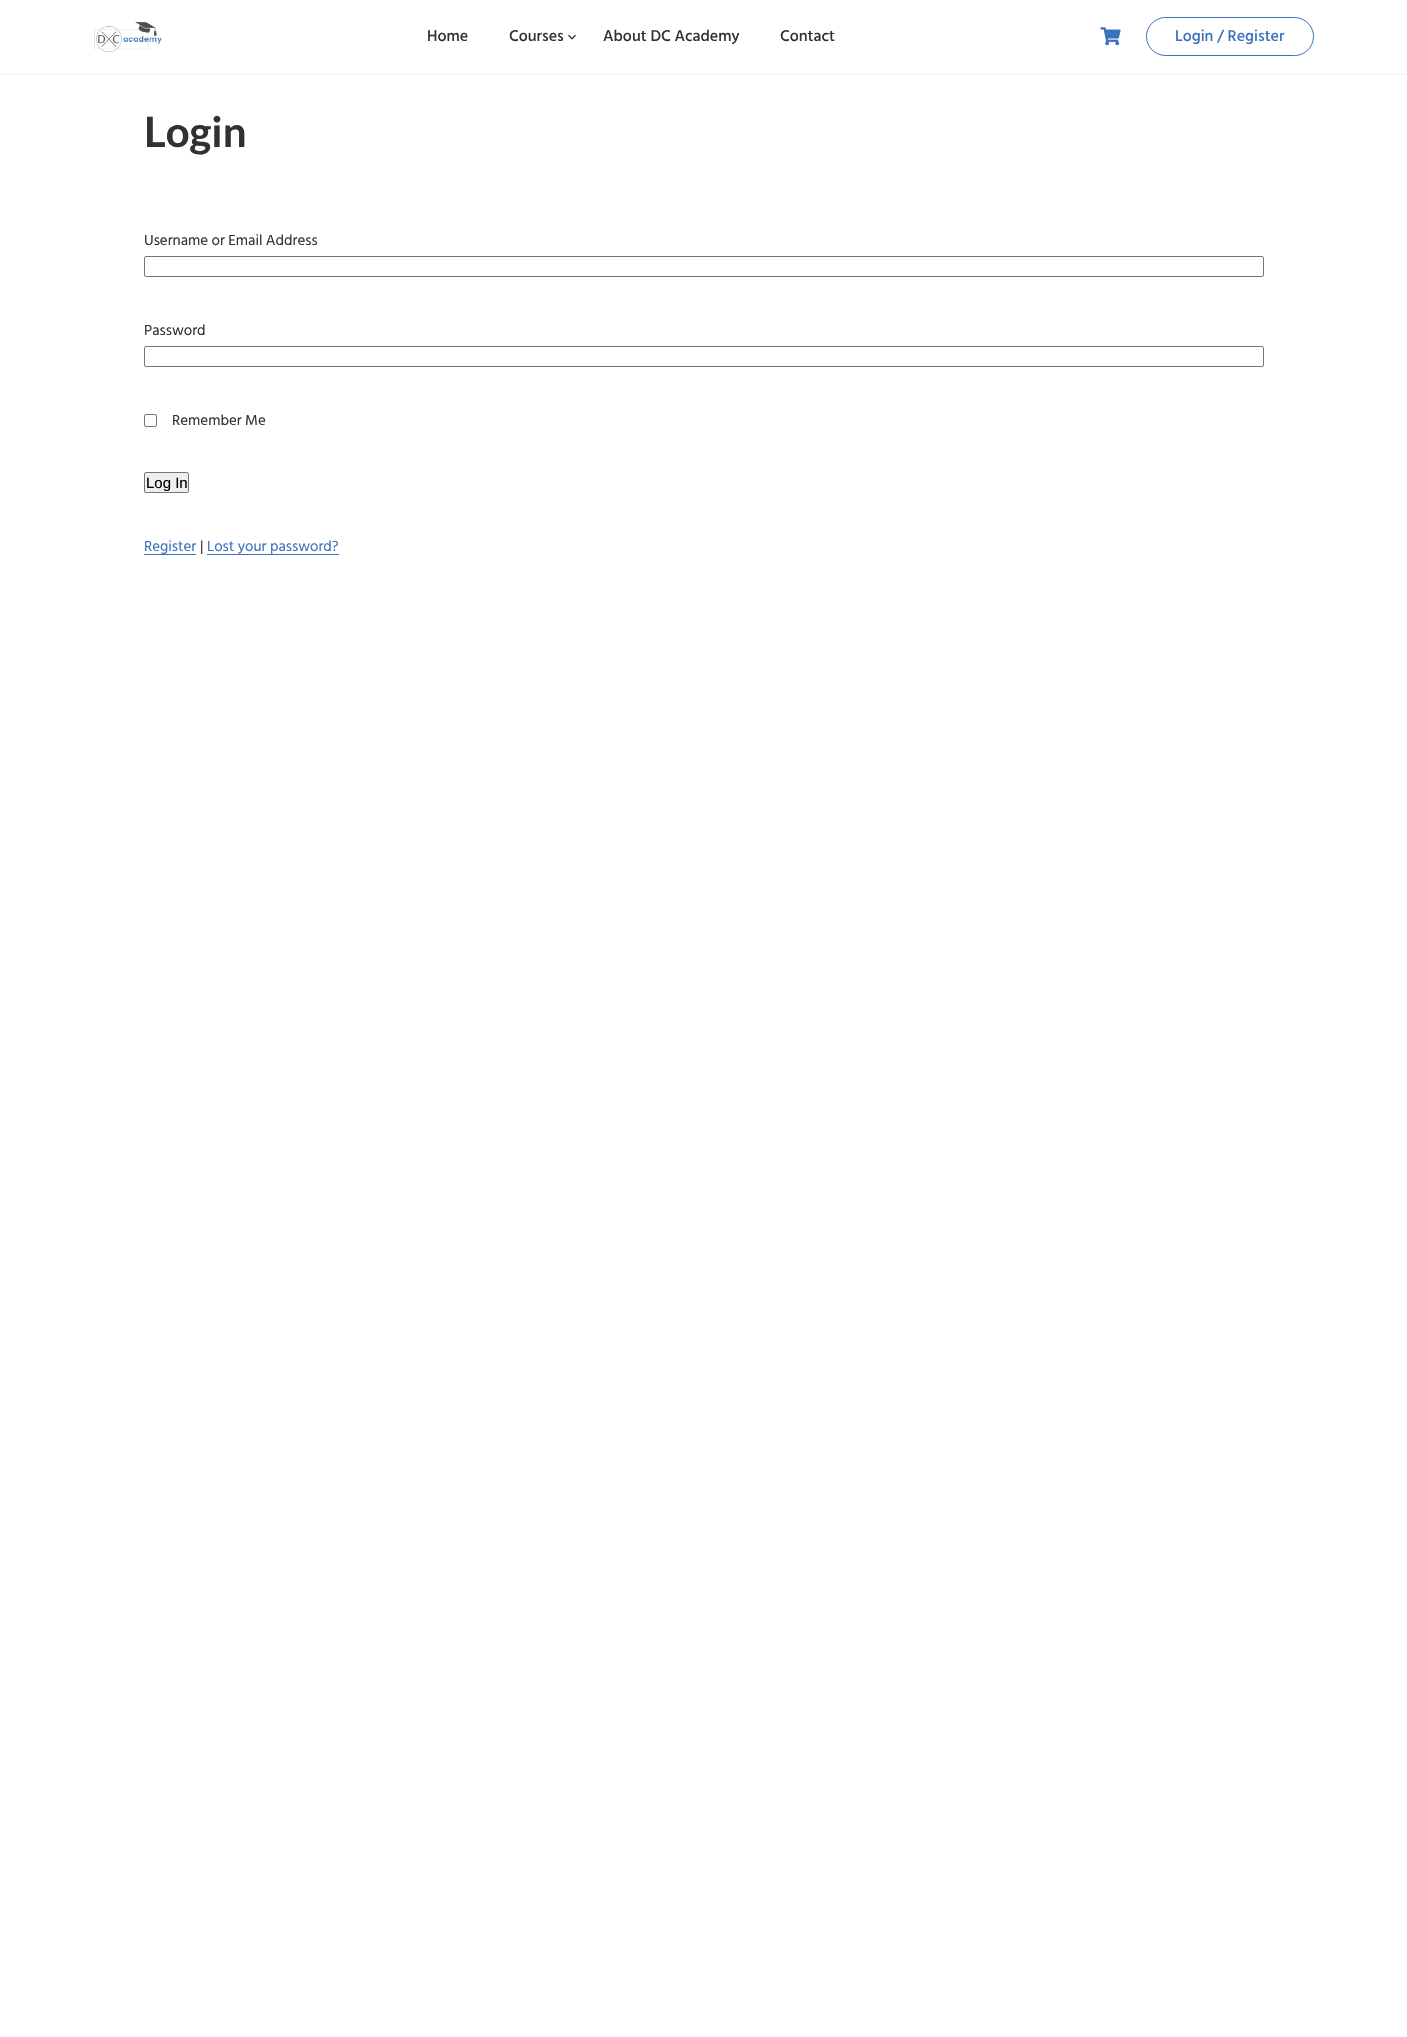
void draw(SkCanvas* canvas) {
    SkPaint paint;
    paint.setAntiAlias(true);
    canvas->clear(0xFFFFFFFF);
    paint.setColor(0xFFF8F8F8);
    canvas->drawRect(SkRect::MakeXYWH(0, 73, 1407, 2), paint);
    canvas->drawImageRect(SkImages::DeferredFromEncodedData(SkData::MakeFromFileName("img1.png")), SkRect::MakeXYWH(94, 22, 68, 30), SkSamplingOptions());
    SkFont font1(fontMgr->matchFamilyStyle("Hind Siliguri", SkFontStyle(500, SkFontStyle::kNormal_Width, SkFontStyle::kUpright_Slant)), 16);
    font1.setSubpixel(true);
    paint.setColor(0xFF313131);
    canvas->drawString("Home", 427, 41, font1, paint);
    canvas->drawString("Courses", 509, 41, font1, paint);
    canvas->drawImageRect(SkImages::DeferredFromEncodedData(SkData::MakeFromFileName("img2.png")), SkRect::MakeXYWH(568, 34, 8, 6), SkSamplingOptions());
    canvas->drawString("About DC Academy", 603, 41, font1, paint);
    canvas->drawString("Contact", 780, 41, font1, paint);
    canvas->drawImageRect(SkImages::DeferredFromEncodedData(SkData::MakeFromFileName("img3.png")), SkRect::MakeXYWH(1100, 27, 21, 19), SkSamplingOptions());
    paint.setStyle(SkPaint::kStroke_Style);
    paint.setStrokeWidth(1);
    paint.setColor(0xFF3A70BC);
    canvas->drawRoundRect(SkRect::MakeXYWH(1146.5f, 17.5f, 167, 38), 19, 19, paint);
    paint.setStyle(SkPaint::kFill_Style);
    canvas->drawString("Login / Register", 1175, 41, font1, paint);
    SkFont font2(fontMgr->matchFamilyStyle("Lato", SkFontStyle::Bold()), 42);
    font2.setSubpixel(true);
    paint.setColor(0xFF313131);
    canvas->drawString("Login", 144, 147, font2, paint);
    SkFont font3(fontMgr->matchFamilyStyle("Hind Siliguri", SkFontStyle::Normal()), 15);
    font3.setSubpixel(true);
    canvas->drawString("Username or Email Address", 144, 245, font3, paint);
    paint.setStyle(SkPaint::kStroke_Style);
    paint.setColor(0xFF767676);
    canvas->drawRoundRect(SkRect::MakeXYWH(144.5f, 256.5f, 1119, 20), 1.5f, 1.5f, paint);
    paint.setStyle(SkPaint::kFill_Style);
    paint.setColor(0xFF313131);
    canvas->drawString("Password", 144, 335, font3, paint);
    paint.setStyle(SkPaint::kStroke_Style);
    paint.setColor(0xFF767676);
    canvas->drawRoundRect(SkRect::MakeXYWH(144.5f, 346.5f, 1119, 20), 1.5f, 1.5f, paint);
    canvas->drawRoundRect(SkRect::MakeXYWH(144.5f, 414.5f, 12, 12), 1.5f, 1.5f, paint);
    paint.setStyle(SkPaint::kFill_Style);
    paint.setColor(0xFF313131);
    canvas->drawString("Remember Me", 172, 425, font3, paint);
    paint.setColor(0xFFEFEFEF);
    canvas->drawRoundRect(SkRect::MakeXYWH(144.5f, 472.5f, 44, 20), 1.5f, 1.5f, paint);
    paint.setStyle(SkPaint::kStroke_Style);
    paint.setColor(0xFF767676);
    canvas->drawRoundRect(SkRect::MakeXYWH(144.5f, 472.5f, 44, 20), 1.5f, 1.5f, paint);
    SkFont font4(fontMgr->matchFamilyStyle("Liberation Sans", SkFontStyle::Normal()), 15);
    font4.setSubpixel(true);
    paint.setStyle(SkPaint::kFill_Style);
    paint.setColor(0xFF000000);
    canvas->drawString("Log In", 146, 488, font4, paint);
    paint.setColor(0xFF3A70BC);
    canvas->drawString("Register", 144, 551, font3, paint);
    canvas->drawRect(SkRect::MakeXYWH(144, 554, 52, 1), paint);
    paint.setColor(0xFF313131);
    canvas->drawString("|", 200, 551, font3, paint);
    paint.setColor(0xFF3A70BC);
    canvas->drawString("Lost your password?", 207, 551, font3, paint);
    canvas->drawRect(SkRect::MakeXYWH(207, 554, 132, 1), paint);
}
